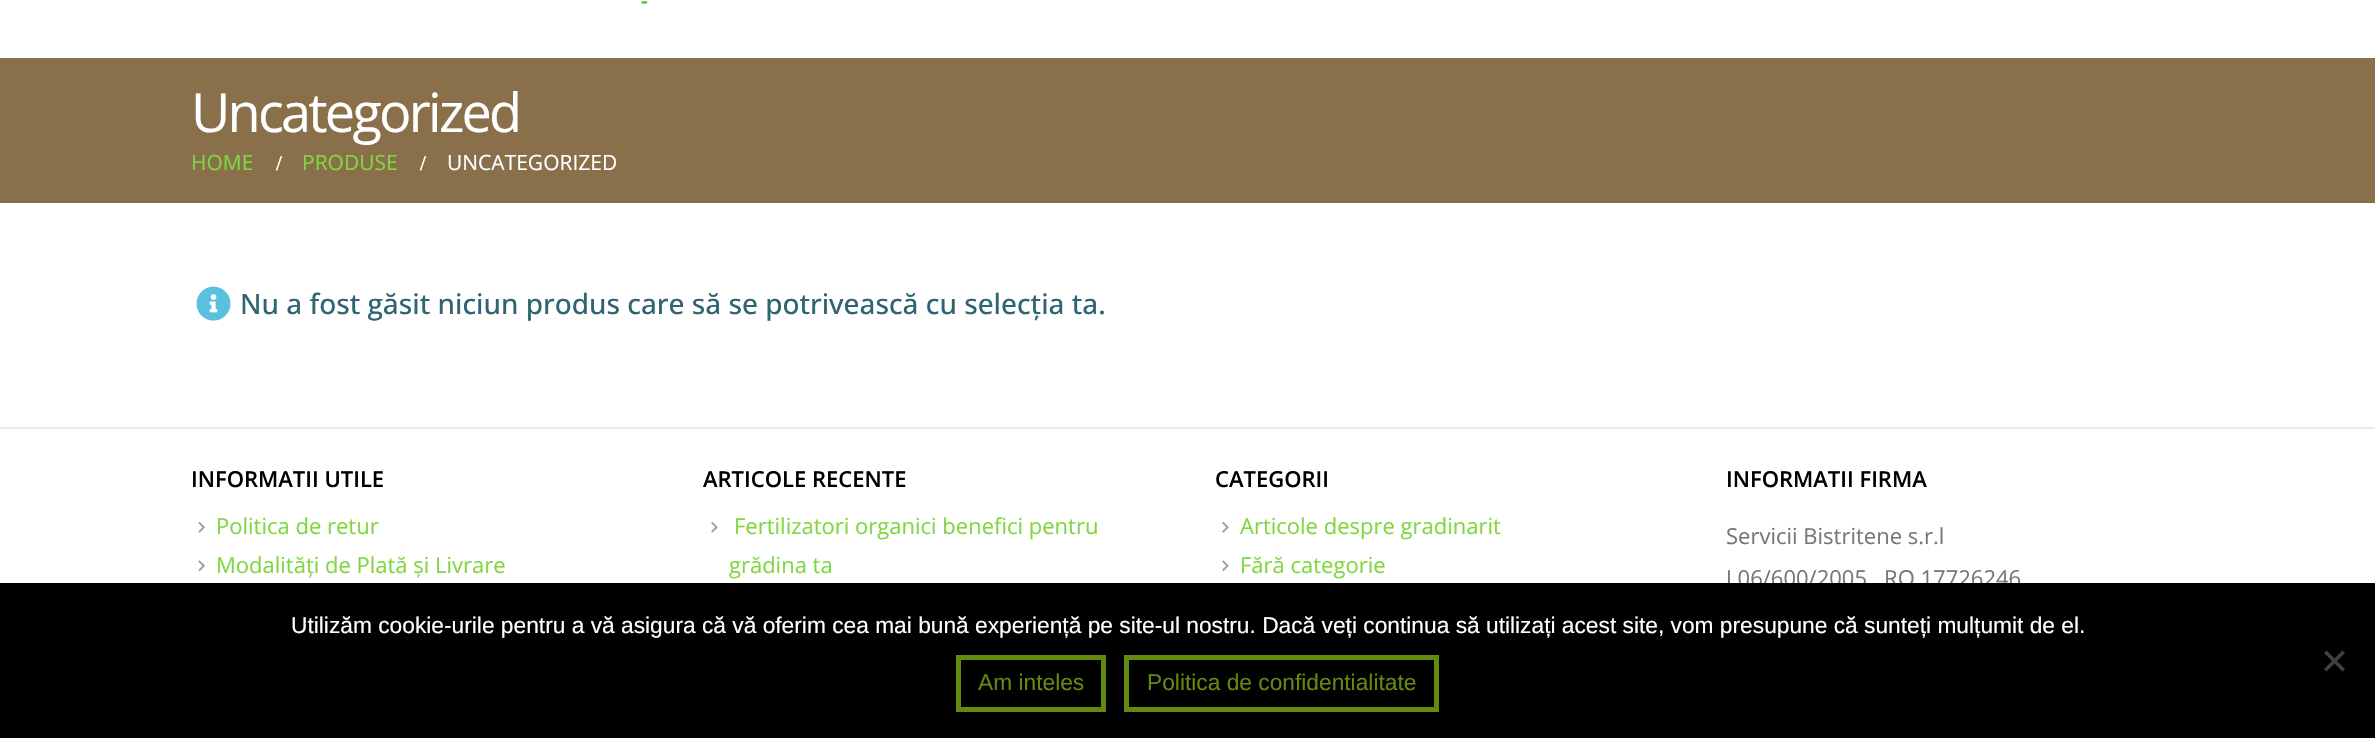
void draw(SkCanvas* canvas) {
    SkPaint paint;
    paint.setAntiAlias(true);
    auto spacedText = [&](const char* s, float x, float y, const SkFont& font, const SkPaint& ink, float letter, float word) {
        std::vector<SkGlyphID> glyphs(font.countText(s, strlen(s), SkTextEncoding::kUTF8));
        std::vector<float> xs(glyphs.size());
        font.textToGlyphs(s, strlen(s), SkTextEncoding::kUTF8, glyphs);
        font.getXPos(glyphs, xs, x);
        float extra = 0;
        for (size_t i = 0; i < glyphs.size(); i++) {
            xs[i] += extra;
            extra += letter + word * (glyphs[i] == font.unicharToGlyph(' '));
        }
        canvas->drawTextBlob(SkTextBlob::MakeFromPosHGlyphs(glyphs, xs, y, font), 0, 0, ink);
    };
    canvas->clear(0xFFFFFFFF);
    SkFont font1(fontMgr->matchFamilyStyle("Open Sans", SkFontStyle::Bold()), 21);
    font1.setSubpixel(true);
    paint.setColor(0xFF6CC14B);
    canvas->drawString("-", 641, 8, font1, paint);
    paint.setColor(0xFF896F4A);
    canvas->drawRect(SkRect::MakeXYWH(0, 58, 2375, 145), paint);
    SkFont font2(fontMgr->matchFamilyStyle("Open Sans", SkFontStyle::Normal()), 54);
    font2.setSubpixel(true);
    paint.setColor(0xFFFFFFFF);
    spacedText("Uncategorized", 191, 132, font2, paint, -2.75f, 0);
    SkFont font3(fontMgr->matchFamilyStyle("Open Sans", SkFontStyle::Normal()), 21);
    font3.setSubpixel(true);
    paint.setColor(0xFF81D742);
    canvas->drawString("HOME", 191, 170, font3, paint);
    SkFont font4(fontMgr->matchFamilyStyle("Liberation Serif", SkFontStyle::Bold()), 21);
    font4.setSubpixel(true);
    paint.setColor(0xFFFFFFFF);
    canvas->drawString("/", 276, 170, font4, paint);
    paint.setColor(0xFF81D742);
    canvas->drawString("PRODUSE", 302, 170, font3, paint);
    paint.setColor(0xFFFFFFFF);
    canvas->drawString("/", 420, 170, font4, paint);
    canvas->drawString("UNCATEGORIZED", 447, 170, font3, paint);
    canvas->drawImageRect(SkImages::DeferredFromEncodedData(SkData::MakeFromFileName("img1.png")), SkRect::MakeXYWH(196, 286, 35, 35), SkSamplingOptions());
    SkFont font5(fontMgr->matchFamilyStyle("Open Sans", SkFontStyle(500, SkFontStyle::kNormal_Width, SkFontStyle::kUpright_Slant)), 28);
    font5.setSubpixel(true);
    paint.setColor(0xFF2F6473);
    canvas->drawString("Nu a fost găsit niciun produs care să se potrivească cu selecția ta.", 240, 314, font5, paint);
    paint.setColor(0xFFE9E9E9);
    canvas->drawRect(SkRect::MakeXYWH(0, 427, 2375, 2), paint);
    SkFont font6(fontMgr->matchFamilyStyle("Open Sans", SkFontStyle(600, SkFontStyle::kNormal_Width, SkFontStyle::kUpright_Slant)), 22);
    font6.setSubpixel(true);
    paint.setColor(0xFF000000);
    canvas->drawString("INFORMATII UTILE", 191, 487, font6, paint);
    canvas->drawImageRect(SkImages::DeferredFromEncodedData(SkData::MakeFromFileName("img2.png")), SkRect::MakeXYWH(198, 522, 7, 11), SkSamplingOptions());
    SkFont font7(fontMgr->matchFamilyStyle("Open Sans", SkFontStyle::Normal()), 22);
    font7.setSubpixel(true);
    paint.setColor(0xFF81D742);
    canvas->drawString("Politica de retur", 216, 534, font7, paint);
    canvas->drawImageRect(SkImages::DeferredFromEncodedData(SkData::MakeFromFileName("img3.png")), SkRect::MakeXYWH(198, 560, 7, 12), SkSamplingOptions());
    canvas->drawString("Modalități de Plată și Livrare", 216, 573, font7, paint);
    paint.setColor(0xFF000000);
    canvas->drawString("ARTICOLE RECENTE", 703, 487, font6, paint);
    canvas->drawImageRect(SkImages::DeferredFromEncodedData(SkData::MakeFromFileName("img4.png")), SkRect::MakeXYWH(711, 522, 7, 11), SkSamplingOptions());
    paint.setColor(0xFF81D742);
    canvas->drawString("Fertilizatori organici benefici pentru", 734, 534, font7, paint);
    canvas->drawString("grădina ta", 729, 573, font7, paint);
    paint.setColor(0xFF000000);
    canvas->drawString("CATEGORII", 1215, 487, font6, paint);
    canvas->drawImageRect(SkImages::DeferredFromEncodedData(SkData::MakeFromFileName("img4.png")), SkRect::MakeXYWH(1222, 522, 7, 11), SkSamplingOptions());
    paint.setColor(0xFF81D742);
    canvas->drawString("Articole despre gradinarit", 1240, 534, font7, paint);
    canvas->drawImageRect(SkImages::DeferredFromEncodedData(SkData::MakeFromFileName("img5.png")), SkRect::MakeXYWH(1222, 560, 7, 12), SkSamplingOptions());
    canvas->drawString("Fără categorie", 1240, 573, font7, paint);
    paint.setColor(0xFF000000);
    canvas->drawString("INFORMATII FIRMA", 1726, 487, font6, paint);
    paint.setColor(0xFF777777);
    canvas->drawString("Servicii Bistritene s.r.l", 1726, 544, font7, paint);
    canvas->drawString("J 06/600/2005 , RO 17726246", 1726, 586, font7, paint);
    paint.setColor(0xFF000000);
    canvas->drawRect(SkRect::MakeXYWH(0, 583, 2375, 155), paint);
    SkFont font8(fontMgr->matchFamilyStyle("Liberation Sans", SkFontStyle::Normal()), 22.75f);
    font8.setSubpixel(true);
    paint.setColor(0xFFFFFFFF);
    canvas->drawString("Utilizăm cookie-urile pentru a vă asigura că vă oferim cea mai bună experiență pe site-ul nostru. Dacă veți continua să utilizați acest site, vom presupune că sunteți mulțumit de el.", 291, 633, font8, paint);
    paint.setColor(0xFF404040);
    canvas->drawPath(SkPathBuilder().moveTo(2342.5f, 650.5f).lineTo(2345, 653).lineTo(2326.5f, 671.5f).lineTo(2324, 669).close().detach(), paint);
    canvas->drawPath(SkPathBuilder().moveTo(2324, 653).lineTo(2326.5f, 650.5f).lineTo(2345, 669).lineTo(2342.5f, 671.5f).close().detach(), paint);
    paint.setStyle(SkPaint::kStroke_Style);
    paint.setStrokeWidth(5);
    paint.setColor(0xFF638A0E);
    canvas->drawRect(SkRect::MakeXYWH(958.5f, 657.5f, 145, 52), paint);
    paint.setStyle(SkPaint::kFill_Style);
    canvas->drawString("Am inteles", 978, 690, font8, paint);
    paint.setStyle(SkPaint::kStroke_Style);
    canvas->drawRect(SkRect::MakeXYWH(1126.5f, 657.5f, 310, 52), paint);
    paint.setStyle(SkPaint::kFill_Style);
    canvas->drawString("Politica de confidentialitate", 1147, 690, font8, paint);
}
